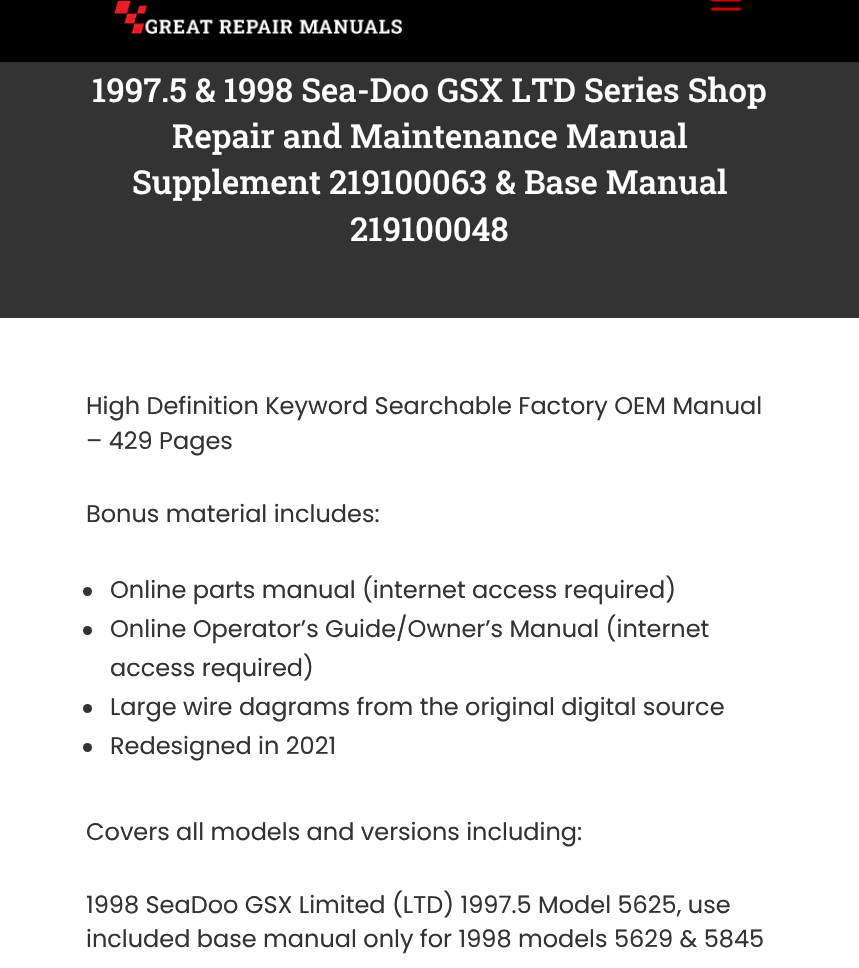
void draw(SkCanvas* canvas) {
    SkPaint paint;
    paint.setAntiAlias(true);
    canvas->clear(0xFFFFFFFF);
    paint.setColor(0xFF2E2E2E);
    canvas->drawPath(SkPathBuilder().moveTo(0, 62).lineTo(0, 63).lineTo(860, 63).lineTo(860, -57).lineTo(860, 62).close().detach(), paint);
    paint.setColor(0xFF000000);
    canvas->drawRect(SkRect::MakeXYWH(0, 0, 859, 62), paint);
    canvas->drawImageRect(SkImages::DeferredFromEncodedData(SkData::MakeFromFileName("img1.png")), SkRect::MakeXYWH(114, 0, 288, 34), SkSamplingOptions());
    canvas->drawImageRect(SkImages::DeferredFromEncodedData(SkData::MakeFromFileName("img2.png")), SkRect::MakeXYWH(711, 0, 30, 11), SkSamplingOptions());
    paint.setColor(0xFF333333);
    canvas->drawRect(SkRect::MakeXYWH(0, 63, 859, 255), paint);
    SkFont font1(fontMgr->matchFamilyStyle("Roboto Slab", SkFontStyle(500, SkFontStyle::kNormal_Width, SkFontStyle::kUpright_Slant)), 33);
    font1.setSubpixel(true);
    paint.setColor(0xFFFFFFFF);
    canvas->drawString("1997.5 & 1998 Sea-Doo GSX LTD Series Shop", 92, 102, font1, paint);
    canvas->drawString("Repair and Maintenance Manual", 172, 148, font1, paint);
    canvas->drawString("Supplement 219100063 & Base Manual", 132, 194, font1, paint);
    canvas->drawString("219100048", 350, 241, font1, paint);
    SkFont font2(fontMgr->matchFamilyStyle("Poppins", SkFontStyle::Normal()), 24);
    font2.setSubpixel(true);
    paint.setColor(0xFF333333);
    canvas->drawString("High Definition Keyword Searchable Factory OEM Manual", 86, 414, font2, paint);
    canvas->drawString("– 429 Pages", 86, 449, font2, paint);
    canvas->drawString("Bonus material includes:", 86, 522, font2, paint);
    canvas->drawCircle(87.5f, 591.5f, 4.5f, paint);
    canvas->drawString("Online parts manual (internet access required)", 110, 598, font2, paint);
    canvas->drawCircle(87.5f, 630.5f, 4.5f, paint);
    canvas->drawString("Online Operator’s Guide/Owner’s Manual (internet", 110, 637, font2, paint);
    canvas->drawString("access required)", 110, 676, font2, paint);
    canvas->drawCircle(87.5f, 708.5f, 4.5f, paint);
    canvas->drawString("Large wire dagrams from the original digital source", 110, 715, font2, paint);
    canvas->drawCircle(87.5f, 747.5f, 4.5f, paint);
    canvas->drawString("Redesigned in 2021", 110, 754, font2, paint);
    canvas->drawString("Covers all models and versions including:", 86, 840, font2, paint);
    canvas->drawString("1998 SeaDoo GSX Limited (LTD) 1997.5 Model 5625, use", 86, 913, font2, paint);
    canvas->drawString("included base manual only for 1998 models 5629 & 5845", 86, 947, font2, paint);
}
